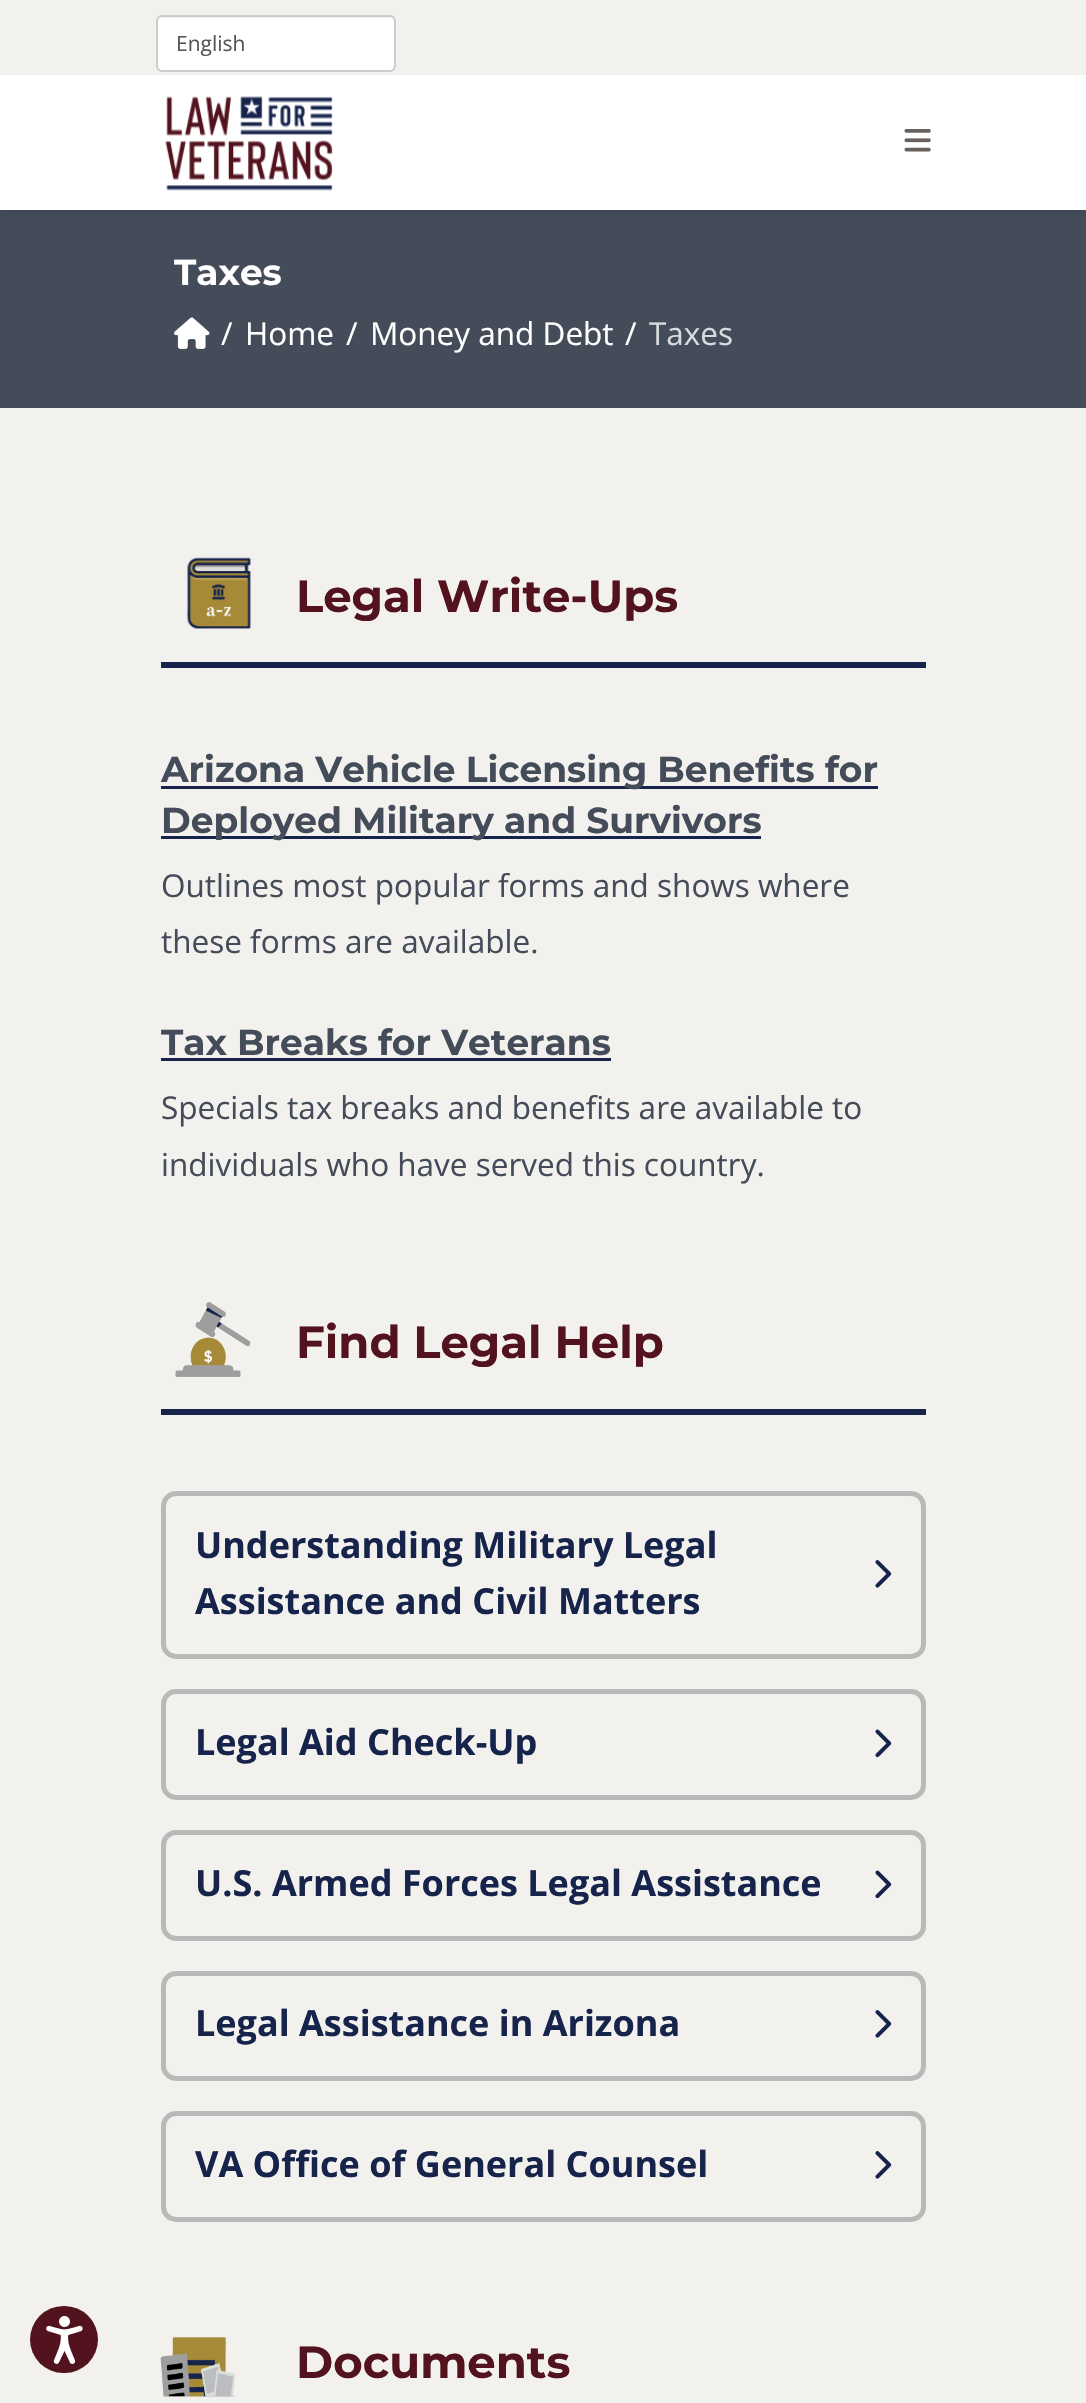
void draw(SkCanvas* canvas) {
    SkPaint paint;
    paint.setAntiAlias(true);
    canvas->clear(0xFFF2F1ED);
    paint.setColor(0xFF53131E);
    canvas->drawRoundRect(SkRect::MakeXYWH(30, 2306, 68, 67), 33.5f, 33.5f, paint);
    canvas->drawImageRect(SkImages::DeferredFromEncodedData(SkData::MakeFromFileName("img1.png")), SkRect::MakeXYWH(46, 2316, 37, 48), SkSamplingOptions());
    paint.setColor(0xFFFFFFFF);
    canvas->drawRoundRect(SkRect::MakeXYWH(156, 15, 240, 57), 6, 6, paint);
    paint.setColor(0xFFECECEC);
    canvas->drawPath(SkPathBuilder().moveTo(162, 18).lineTo(390, 18).cubicTo(392, 18, 394, 20, 394, 22).lineTo(394, 69).cubicTo(395, 68, 395, 67, 395, 66).lineTo(395, 22).cubicTo(395, 19, 393, 17, 390, 17).lineTo(163, 17).cubicTo(160, 17, 158, 19, 158, 22).cubicTo(158, 20, 160, 18, 162, 18).close().detach(), paint);
    paint.setStyle(SkPaint::kStroke_Style);
    paint.setStrokeWidth(2);
    paint.setColor(0xFFCCCCCC);
    canvas->drawRoundRect(SkRect::MakeXYWH(157, 16, 238, 55), 5, 5, paint);
    SkFont font1(fontMgr->matchFamilyStyle("Open Sans", SkFontStyle::Normal()), 21);
    font1.setSubpixel(true);
    paint.setStyle(SkPaint::kFill_Style);
    paint.setColor(0xFF555555);
    canvas->drawString("English", 176, 51, font1, paint);
    paint.setColor(0xFF444B59);
    canvas->drawRect(SkRect::MakeXYWH(0, 210, 1086, 198), paint);
    paint.setColor(0x0D000000);
    paint.setMaskFilter(SkMaskFilter::MakeBlur(kNormal_SkBlurStyle, 2));
    canvas->drawRect(SkRect::MakeXYWH(0, 80, 1086, 135), paint);
    paint.setMaskFilter(nullptr);
    paint.setColor(0xFFFFFFFF);
    canvas->drawRect(SkRect::MakeXYWH(0, 75, 1086, 135), paint);
    canvas->drawImageRect(SkImages::DeferredFromEncodedData(SkData::MakeFromFileName("img2.png")), SkRect::MakeXYWH(165, 96, 168, 95), SkSamplingOptions());
    canvas->drawImageRect(SkImages::DeferredFromEncodedData(SkData::MakeFromFileName("img3.png")), SkRect::MakeXYWH(904, 129, 27, 23), SkSamplingOptions());
    SkFont font2(fontMgr->matchFamilyStyle("Montserrat", SkFontStyle::Bold()), 36);
    font2.setSubpixel(true);
    canvas->drawString("Taxes", 174, 285, font2, paint);
    canvas->drawImageRect(SkImages::DeferredFromEncodedData(SkData::MakeFromFileName("img4.png")), SkRect::MakeXYWH(174, 317, 36, 32), SkSamplingOptions());
    SkFont font3(fontMgr->matchFamilyStyle("Open Sans", SkFontStyle::Normal()), 31.5f);
    font3.setSubpixel(true);
    canvas->drawString("/", 221, 345, font3, paint);
    canvas->drawString("Home", 245, 345, font3, paint);
    canvas->drawString("/", 346, 345, font3, paint);
    canvas->drawString("Money and Debt", 370, 345, font3, paint);
    canvas->drawString("/", 625, 345, font3, paint);
    paint.setColor(0xFFDADBDE);
    canvas->drawString("Taxes", 649, 345, font3, paint);
    canvas->drawImageRect(SkImages::DeferredFromEncodedData(SkData::MakeFromFileName("img5.png")), SkRect::MakeXYWH(187, 557, 64, 72), SkSamplingOptions());
    SkFont font4(fontMgr->matchFamilyStyle("Montserrat", SkFontStyle::Bold()), 45);
    font4.setSubpixel(true);
    paint.setColor(0xFF53131E);
    canvas->drawString("Legal Write-Ups", 296, 612, font4, paint);
    paint.setColor(0xFF16244B);
    canvas->drawRect(SkRect::MakeXYWH(161, 662, 765, 6), paint);
    canvas->drawRect(SkRect::MakeXYWH(161, 786, 717, 3), paint);
    paint.setColor(0xFF444B59);
    canvas->drawString("Arizona Vehicle Licensing Benefits for", 161, 782, font2, paint);
    paint.setColor(0xFF16244B);
    canvas->drawRect(SkRect::MakeXYWH(161, 836, 600, 3), paint);
    paint.setColor(0xFF444B59);
    canvas->drawString("Deployed Military and Survivors", 161, 833, font2, paint);
    canvas->drawString("Outlines most popular forms and shows where", 161, 897, font3, paint);
    canvas->drawString("these forms are available.", 161, 953, font3, paint);
    canvas->drawString("Tax Breaks for Veterans", 161, 1055, font2, paint);
    paint.setColor(0xFF16244B);
    canvas->drawRect(SkRect::MakeXYWH(161, 1058, 450, 3), paint);
    paint.setColor(0xFF444B59);
    canvas->drawString("Specials tax breaks and benefits are available to", 161, 1119, font3, paint);
    canvas->drawString("individuals who have served this country.", 161, 1176, font3, paint);
    canvas->drawImageRect(SkImages::DeferredFromEncodedData(SkData::MakeFromFileName("img6.png")), SkRect::MakeXYWH(175, 1302, 76, 75), SkSamplingOptions());
    paint.setColor(0xFF53131E);
    canvas->drawString("Find Legal Help", 296, 1358, font4, paint);
    paint.setColor(0xFF16244B);
    canvas->drawRect(SkRect::MakeXYWH(161, 1409, 765, 6), paint);
    paint.setStyle(SkPaint::kStroke_Style);
    paint.setStrokeWidth(5);
    paint.setColor(0xFFB9B9B9);
    canvas->drawRoundRect(SkRect::MakeXYWH(163.5f, 1493.5f, 760, 163), 12.5f, 12.5f, paint);
    SkFont font5(fontMgr->matchFamilyStyle("Open Sans", SkFontStyle::Bold()), 36);
    font5.setSubpixel(true);
    paint.setStyle(SkPaint::kFill_Style);
    paint.setColor(0xFF16244B);
    canvas->drawString("Understanding Military Legal", 195, 1558, font5, paint);
    canvas->drawImageRect(SkImages::DeferredFromEncodedData(SkData::MakeFromFileName("img7.png")), SkRect::MakeXYWH(875, 1560, 17, 28), SkSamplingOptions());
    canvas->drawString("Assistance and Civil Matters", 195, 1614, font5, paint);
    paint.setStyle(SkPaint::kStroke_Style);
    paint.setColor(0xFFB9B9B9);
    canvas->drawRoundRect(SkRect::MakeXYWH(163.5f, 1691.5f, 760, 106), 12.5f, 12.5f, paint);
    paint.setStyle(SkPaint::kFill_Style);
    paint.setColor(0xFF16244B);
    canvas->drawString("Legal Aid Check-Up", 195, 1755, font5, paint);
    canvas->drawImageRect(SkImages::DeferredFromEncodedData(SkData::MakeFromFileName("img8.png")), SkRect::MakeXYWH(875, 1729, 17, 29), SkSamplingOptions());
    paint.setStyle(SkPaint::kStroke_Style);
    paint.setColor(0xFFB9B9B9);
    canvas->drawRoundRect(SkRect::MakeXYWH(163.5f, 1832.5f, 760, 106), 12.5f, 12.5f, paint);
    paint.setStyle(SkPaint::kFill_Style);
    paint.setColor(0xFF16244B);
    canvas->drawString("U.S. Armed Forces Legal Assistance", 195, 1896, font5, paint);
    canvas->drawImageRect(SkImages::DeferredFromEncodedData(SkData::MakeFromFileName("img8.png")), SkRect::MakeXYWH(875, 1870, 17, 29), SkSamplingOptions());
    paint.setStyle(SkPaint::kStroke_Style);
    paint.setColor(0xFFB9B9B9);
    canvas->drawRoundRect(SkRect::MakeXYWH(163.5f, 1973.5f, 760, 105), 12.5f, 12.5f, paint);
    paint.setStyle(SkPaint::kFill_Style);
    paint.setColor(0xFF16244B);
    canvas->drawString("Legal Assistance in Arizona", 195, 2036, font5, paint);
    canvas->drawImageRect(SkImages::DeferredFromEncodedData(SkData::MakeFromFileName("img7.png")), SkRect::MakeXYWH(875, 2010, 17, 28), SkSamplingOptions());
    paint.setStyle(SkPaint::kStroke_Style);
    paint.setColor(0xFFB9B9B9);
    canvas->drawRoundRect(SkRect::MakeXYWH(163.5f, 2113.5f, 760, 106), 12.5f, 12.5f, paint);
    paint.setStyle(SkPaint::kFill_Style);
    paint.setColor(0xFF16244B);
    canvas->drawString("VA Office of General Counsel", 195, 2177, font5, paint);
    canvas->drawImageRect(SkImages::DeferredFromEncodedData(SkData::MakeFromFileName("img7.png")), SkRect::MakeXYWH(875, 2151, 17, 28), SkSamplingOptions());
    canvas->drawImageRect(SkImages::DeferredFromEncodedData(SkData::MakeFromFileName("img9.png")), SkRect::MakeXYWH(160, 2337, 75, 60), SkSamplingOptions());
    paint.setColor(0xFF53131E);
    canvas->drawString("Documents", 296, 2378, font4, paint);
}
